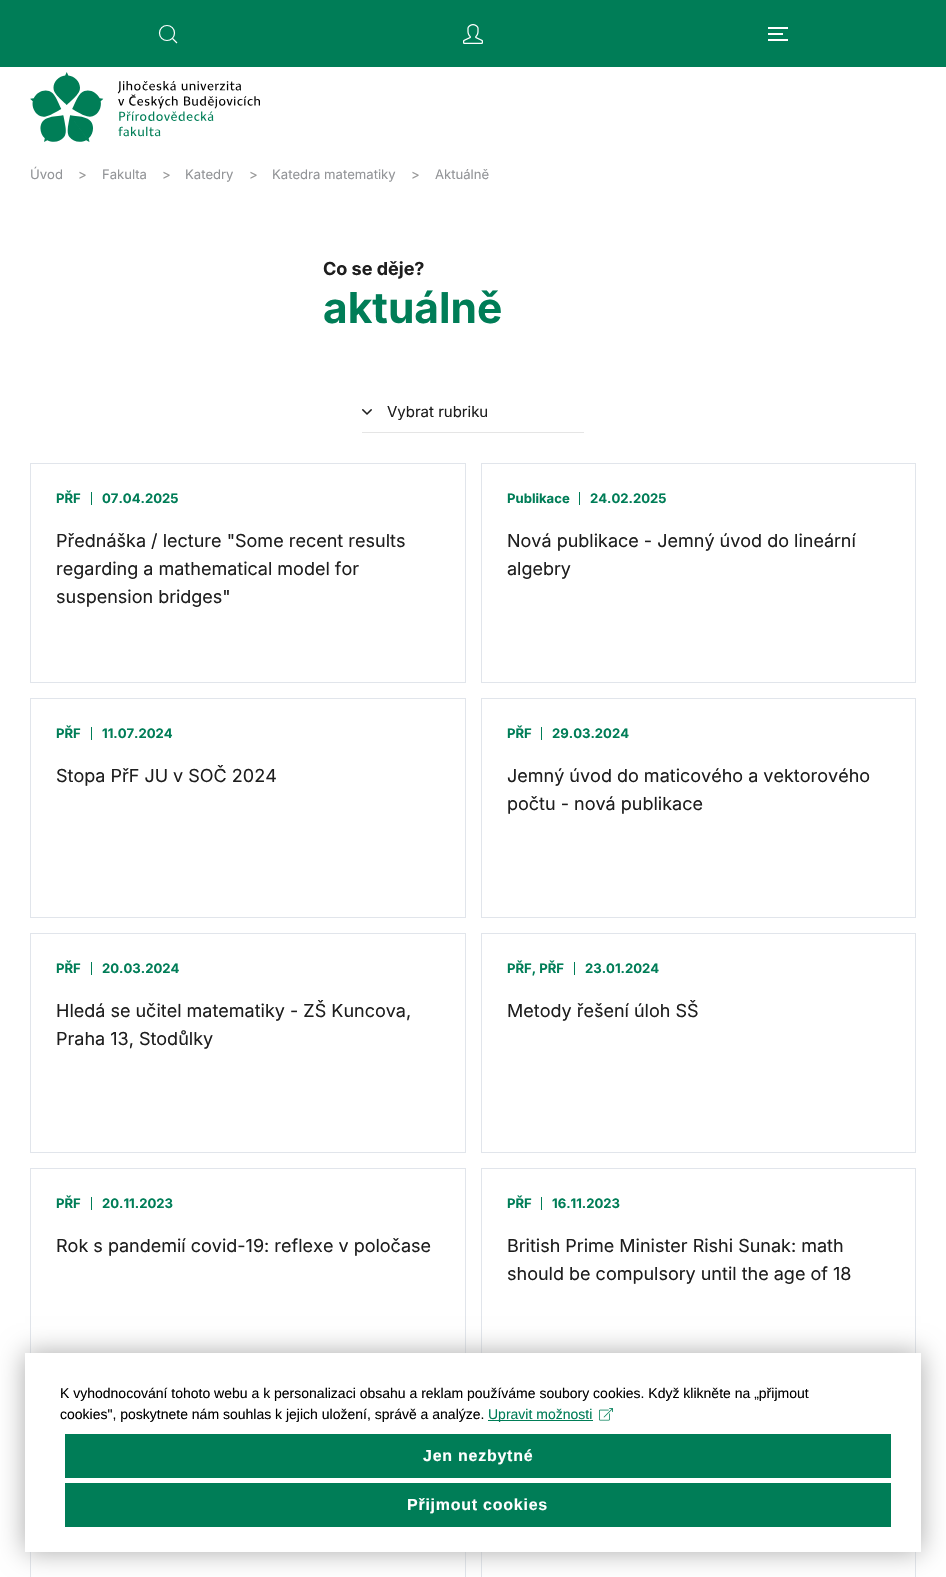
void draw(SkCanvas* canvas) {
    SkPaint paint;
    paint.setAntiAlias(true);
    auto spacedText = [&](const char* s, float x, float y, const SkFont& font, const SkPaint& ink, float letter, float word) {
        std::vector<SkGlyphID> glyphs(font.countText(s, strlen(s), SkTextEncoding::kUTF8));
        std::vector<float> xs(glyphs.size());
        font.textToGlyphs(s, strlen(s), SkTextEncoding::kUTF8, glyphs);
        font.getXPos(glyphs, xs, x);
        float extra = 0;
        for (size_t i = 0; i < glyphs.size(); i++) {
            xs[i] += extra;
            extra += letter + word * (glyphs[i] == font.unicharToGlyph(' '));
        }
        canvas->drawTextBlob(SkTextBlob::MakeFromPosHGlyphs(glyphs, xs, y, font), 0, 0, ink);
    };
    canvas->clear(0xFFFFFFFF);
    paint.setColor(0xFF007D57);
    canvas->drawRect(SkRect::MakeXYWH(0, 0, 946, 67), paint);
    paint.setStyle(SkPaint::kStroke_Style);
    paint.setStrokeWidth(1.2f);
    paint.setColor(0xFFFFFFFF);
    canvas->drawCircle(167, 33, 7.5f, paint);
    canvas->drawPath(SkPathBuilder().moveTo(172.5f, 38.5f).lineTo(177, 43).close().detach(), paint);
    canvas->drawImageRect(SkImages::DeferredFromEncodedData(SkData::MakeFromFileName("img1.png")), SkRect::MakeXYWH(463, 24, 20, 20), SkSamplingOptions());
    paint.setStyle(SkPaint::kFill_Style);
    canvas->drawRect(SkRect::MakeXYWH(768, 27, 20, 2), paint);
    canvas->drawRect(SkRect::MakeXYWH(768, 33, 15, 2), paint);
    canvas->drawRect(SkRect::MakeXYWH(768, 39, 20, 2), paint);
    canvas->drawImageRect(SkImages::DeferredFromEncodedData(SkData::MakeFromFileName("img2.png")), SkRect::MakeXYWH(30, 72, 230, 70), SkSamplingOptions());
    SkFont font1(fontMgr->matchFamilyStyle("Inter", SkFontStyle::Normal()), 13.1f);
    font1.setSubpixel(true);
    paint.setColor(0xFF939598);
    canvas->drawString("Úvod", 30, 179, font1, paint);
    paint.setColor(0xFF999999);
    canvas->drawString(">", 78, 179, font1, paint);
    paint.setColor(0xFF939598);
    canvas->drawString("Fakulta", 102, 179, font1, paint);
    paint.setColor(0xFF999999);
    canvas->drawString(">", 162, 179, font1, paint);
    paint.setColor(0xFF939598);
    canvas->drawString("Katedry", 185, 179, font1, paint);
    paint.setColor(0xFF999999);
    canvas->drawString(">", 249, 179, font1, paint);
    paint.setColor(0xFF939598);
    canvas->drawString("Katedra matematiky", 272, 179, font1, paint);
    paint.setColor(0xFF999999);
    canvas->drawString(">", 411, 179, font1, paint);
    paint.setColor(0xFF939598);
    canvas->drawString("Aktuálně", 435, 179, font1, paint);
    SkFont font2(fontMgr->matchFamilyStyle("Inter", SkFontStyle::Bold()), 18);
    font2.setSubpixel(true);
    paint.setColor(0xFF1E1E1E);
    canvas->drawString("Co se děje?", 323, 275, font2, paint);
    SkFont font3(fontMgr->matchFamilyStyle("Inter", SkFontStyle::Bold()), 42.5f);
    font3.setSubpixel(true);
    paint.setColor(0xFF007D57);
    canvas->drawString("aktuálně", 323, 323, font3, paint);
    canvas->drawImageRect(SkImages::DeferredFromEncodedData(SkData::MakeFromFileName("img3.png")), SkRect::MakeXYWH(362, 409, 10, 6), SkSamplingOptions());
    paint.setColor(0xFFE5E5E5);
    canvas->drawRect(SkRect::MakeXYWH(362, 432, 222, 1), paint);
    SkFont font4(fontMgr->matchFamilyStyle("Inter", SkFontStyle::Normal()), 15);
    font4.setSubpixel(true);
    paint.setColor(0xFF1E1E1E);
    canvas->drawString("Vybrat rubriku", 387, 417, font4, paint);
    paint.setStyle(SkPaint::kStroke_Style);
    paint.setStrokeWidth(1);
    paint.setColor(0xFFE1E5EB);
    canvas->drawRect(SkRect::MakeXYWH(30.5f, 463.5f, 435, 219), paint);
    SkFont font5(fontMgr->matchFamilyStyle("Inter", SkFontStyle::Bold()), 13.1f);
    font5.setSubpixel(true);
    paint.setStyle(SkPaint::kFill_Style);
    paint.setColor(0xFF007D57);
    canvas->drawString("PŘF", 56, 503, font5, paint);
    canvas->drawRect(SkRect::MakeXYWH(91, 492, 1, 13), paint);
    canvas->drawString("07.04.2025", 102, 503, font5, paint);
    SkFont font6(fontMgr->matchFamilyStyle("Inter", SkFontStyle::Normal()), 18);
    font6.setSubpixel(true);
    paint.setColor(0xFF1E1E1E);
    canvas->drawString("Přednáška / lecture \"Some recent results", 56, 547, font6, paint);
    canvas->drawString("regarding a mathematical model for", 56, 575, font6, paint);
    canvas->drawString("suspension bridges\"", 56, 603, font6, paint);
    paint.setStyle(SkPaint::kStroke_Style);
    paint.setColor(0xFFE1E5EB);
    canvas->drawRect(SkRect::MakeXYWH(481.5f, 463.5f, 434, 219), paint);
    paint.setStyle(SkPaint::kFill_Style);
    paint.setColor(0xFF007D57);
    canvas->drawString("Publikace", 507, 503, font5, paint);
    canvas->drawRect(SkRect::MakeXYWH(579, 492, 1, 13), paint);
    canvas->drawString("24.02.2025", 590, 503, font5, paint);
    paint.setColor(0xFF1E1E1E);
    canvas->drawString("Nová publikace - Jemný úvod do lineární", 507, 547, font6, paint);
    canvas->drawString("algebry", 507, 575, font6, paint);
    paint.setStyle(SkPaint::kStroke_Style);
    paint.setColor(0xFFE1E5EB);
    canvas->drawRect(SkRect::MakeXYWH(30.5f, 698.5f, 435, 219), paint);
    paint.setStyle(SkPaint::kFill_Style);
    paint.setColor(0xFF007D57);
    canvas->drawString("PŘF", 56, 738, font5, paint);
    canvas->drawRect(SkRect::MakeXYWH(91, 727, 1, 13), paint);
    canvas->drawString("11.07.2024", 102, 738, font5, paint);
    paint.setColor(0xFF1E1E1E);
    canvas->drawString("Stopa PřF JU v SOČ 2024", 56, 782, font6, paint);
    paint.setStyle(SkPaint::kStroke_Style);
    paint.setColor(0xFFE1E5EB);
    canvas->drawRect(SkRect::MakeXYWH(481.5f, 698.5f, 434, 219), paint);
    paint.setStyle(SkPaint::kFill_Style);
    paint.setColor(0xFF007D57);
    canvas->drawString("PŘF", 507, 738, font5, paint);
    canvas->drawRect(SkRect::MakeXYWH(541, 727, 1, 13), paint);
    canvas->drawString("29.03.2024", 552, 738, font5, paint);
    paint.setColor(0xFF1E1E1E);
    canvas->drawString("Jemný úvod do maticového a vektorového", 507, 782, font6, paint);
    canvas->drawString("počtu - nová publikace", 507, 810, font6, paint);
    paint.setStyle(SkPaint::kStroke_Style);
    paint.setColor(0xFFE1E5EB);
    canvas->drawRect(SkRect::MakeXYWH(30.5f, 933.5f, 435, 219), paint);
    paint.setStyle(SkPaint::kFill_Style);
    paint.setColor(0xFF007D57);
    canvas->drawString("PŘF", 56, 973, font5, paint);
    canvas->drawRect(SkRect::MakeXYWH(91, 962, 1, 13), paint);
    canvas->drawString("20.03.2024", 102, 973, font5, paint);
    paint.setColor(0xFF1E1E1E);
    canvas->drawString("Hledá se učitel matematiky - ZŠ Kuncova,", 56, 1017, font6, paint);
    canvas->drawString("Praha 13, Stodůlky", 56, 1045, font6, paint);
    paint.setStyle(SkPaint::kStroke_Style);
    paint.setColor(0xFFE1E5EB);
    canvas->drawRect(SkRect::MakeXYWH(481.5f, 933.5f, 434, 219), paint);
    paint.setStyle(SkPaint::kFill_Style);
    paint.setColor(0xFF007D57);
    canvas->drawString("PŘF, PŘF", 507, 973, font5, paint);
    canvas->drawRect(SkRect::MakeXYWH(574, 962, 1, 13), paint);
    canvas->drawString("23.01.2024", 585, 973, font5, paint);
    paint.setColor(0xFF1E1E1E);
    canvas->drawString("Metody řešení úloh SŠ", 507, 1017, font6, paint);
    paint.setStyle(SkPaint::kStroke_Style);
    paint.setColor(0xFFE1E5EB);
    canvas->drawRect(SkRect::MakeXYWH(30.5f, 1168.5f, 435, 219), paint);
    paint.setStyle(SkPaint::kFill_Style);
    paint.setColor(0xFF007D57);
    canvas->drawString("PŘF", 56, 1208, font5, paint);
    canvas->drawRect(SkRect::MakeXYWH(91, 1197, 1, 13), paint);
    canvas->drawString("20.11.2023", 102, 1208, font5, paint);
    paint.setColor(0xFF1E1E1E);
    canvas->drawString("Rok s pandemií covid-19: reflexe v poločase", 56, 1252, font6, paint);
    paint.setStyle(SkPaint::kStroke_Style);
    paint.setColor(0xFFE1E5EB);
    canvas->drawRect(SkRect::MakeXYWH(481.5f, 1168.5f, 434, 219), paint);
    paint.setStyle(SkPaint::kFill_Style);
    paint.setColor(0xFF007D57);
    canvas->drawString("PŘF", 507, 1208, font5, paint);
    canvas->drawRect(SkRect::MakeXYWH(541, 1197, 1, 13), paint);
    canvas->drawString("16.11.2023", 552, 1208, font5, paint);
    paint.setColor(0xFF1E1E1E);
    canvas->drawString("British Prime Minister Rishi Sunak: math", 507, 1252, font6, paint);
    canvas->drawString("should be compulsory until the age of 18", 507, 1280, font6, paint);
    paint.setStyle(SkPaint::kStroke_Style);
    paint.setColor(0xFFE1E5EB);
    canvas->drawRect(SkRect::MakeXYWH(30.5f, 1403.5f, 435, 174), paint);
    canvas->drawRect(SkRect::MakeXYWH(481.5f, 1403.5f, 434, 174), paint);
    paint.setStyle(SkPaint::kFill_Style);
    paint.setColor(0xFFAAAAAA);
    paint.setMaskFilter(SkMaskFilter::MakeBlur(kNormal_SkBlurStyle, 12.5f));
    canvas->drawRect(SkRect::MakeXYWH(25, 1353, 896, 199), paint);
    paint.setMaskFilter(nullptr);
    paint.setColor(0xFFFFFFFF);
    canvas->drawRect(SkRect::MakeXYWH(25, 1353, 896, 199), paint);
    SkFont font7(fontMgr->matchFamilyStyle("Liberation Sans", SkFontStyle::Normal()), 14);
    font7.setSubpixel(true);
    paint.setColor(0xFF000000);
    canvas->drawString("K vyhodnocování tohoto webu a k personalizaci obsahu a reklam používáme soubory cookies. Když klikněte na „přijmout", 60, 1398, font7, paint);
    canvas->drawString("cookies\", poskytnete nám souhlas k jejich uložení, správě a analýze.", 60, 1419, font7, paint);
    paint.setColor(0xFF007D57);
    canvas->drawRect(SkRect::MakeXYWH(488, 1420, 105, 1), paint);
    canvas->drawString("Upravit možnosti", 488, 1419, font7, paint);
    canvas->drawImageRect(SkImages::DeferredFromEncodedData(SkData::MakeFromFileName("img4.png")), SkRect::MakeXYWH(599, 1408, 14, 13), SkSamplingOptions());
    canvas->drawRect(SkRect::MakeXYWH(65, 1434, 826, 44), paint);
    SkFont font8(fontMgr->matchFamilyStyle("Liberation Sans", SkFontStyle::Bold()), 16);
    font8.setSubpixel(true);
    paint.setColor(0xFFFFFFFF);
    spacedText("Jen nezbytné", 423, 1461, font8, paint, 0.75f, 0);
    paint.setColor(0xFF007D57);
    canvas->drawRect(SkRect::MakeXYWH(65, 1483, 826, 44), paint);
    paint.setColor(0xFFFFFFFF);
    spacedText("Přijmout cookies", 407, 1510, font8, paint, 0.75f, 0);
}
